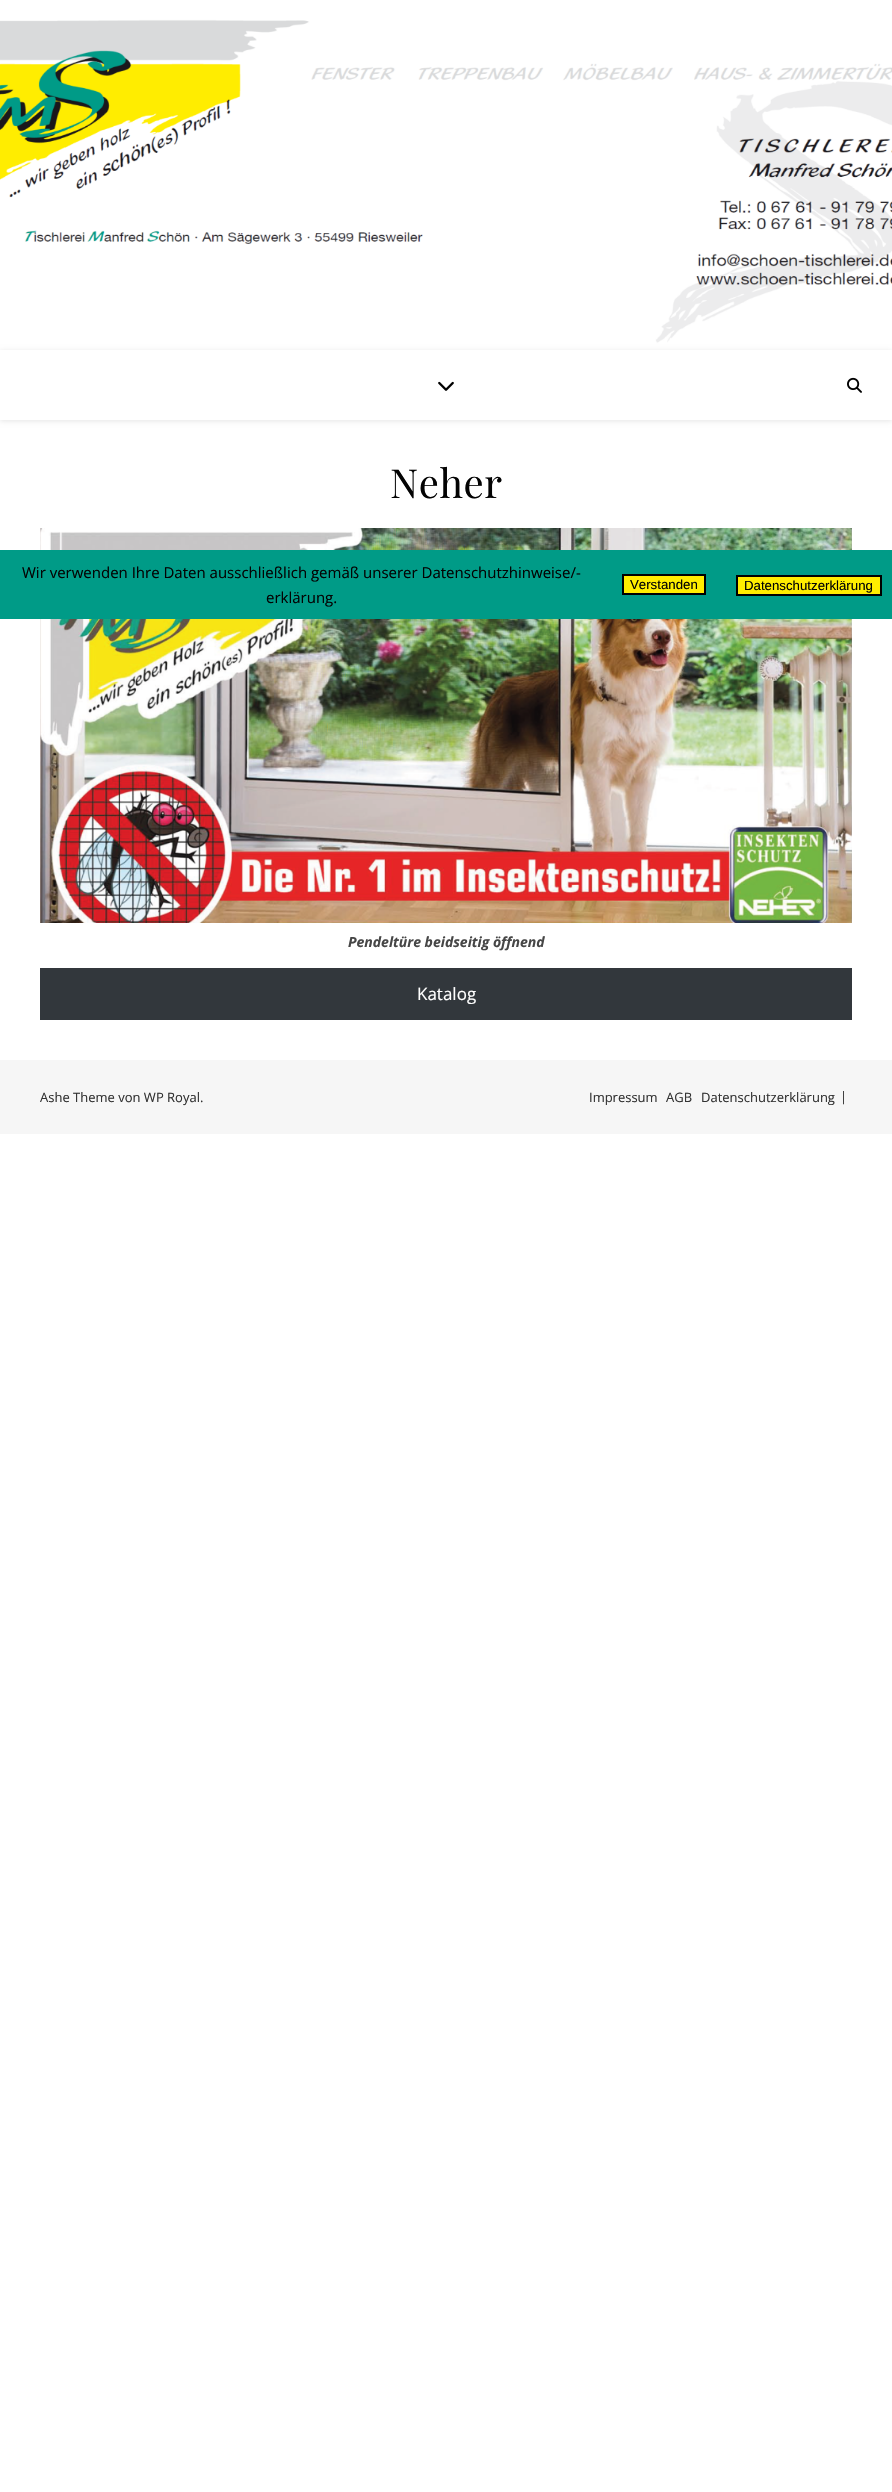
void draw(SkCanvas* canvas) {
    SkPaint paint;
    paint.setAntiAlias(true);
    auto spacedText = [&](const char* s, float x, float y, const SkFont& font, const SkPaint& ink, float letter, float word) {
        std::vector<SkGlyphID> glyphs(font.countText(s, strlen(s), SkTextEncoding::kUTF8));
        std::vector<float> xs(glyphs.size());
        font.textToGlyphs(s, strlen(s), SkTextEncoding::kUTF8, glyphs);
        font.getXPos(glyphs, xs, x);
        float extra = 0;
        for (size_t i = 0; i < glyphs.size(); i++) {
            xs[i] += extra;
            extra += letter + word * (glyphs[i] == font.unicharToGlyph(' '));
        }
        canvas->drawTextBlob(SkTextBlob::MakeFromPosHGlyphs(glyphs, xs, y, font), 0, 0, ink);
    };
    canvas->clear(0xFFFFFFFF);
    canvas->drawImageRect(SkImages::DeferredFromEncodedData(SkData::MakeFromFileName("img1.png")), SkRect::MakeXYWH(0, 0, 892, 350), SkSamplingOptions());
    canvas->save();
    canvas->clipPath(SkPathBuilder(SkPathFillType::kEvenOdd).moveTo(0, 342).lineTo(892, 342).lineTo(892, 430).lineTo(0, 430).close().moveTo(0, 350).lineTo(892, 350).lineTo(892, 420).lineTo(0, 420).close().detach(), true);
    paint.setColor(0x1A000000);
    paint.setMaskFilter(SkMaskFilter::MakeBlur(kNormal_SkBlurStyle, 2.5f));
    canvas->drawRect(SkRect::MakeXYWH(0, 351, 892, 70), paint);
    paint.setMaskFilter(nullptr);
    canvas->restore();
    canvas->drawImageRect(SkImages::DeferredFromEncodedData(SkData::MakeFromFileName("img2.png")), SkRect::MakeXYWH(438, 381, 16, 10), SkSamplingOptions());
    canvas->drawImageRect(SkImages::DeferredFromEncodedData(SkData::MakeFromFileName("img3.png")), SkRect::MakeXYWH(847, 377, 15, 16), SkSamplingOptions());
    SkFont font1(fontMgr->matchFamilyStyle("Playfair Display", SkFontStyle::Normal()), 40);
    font1.setSubpixel(true);
    paint.setColor(0xFF030303);
    spacedText("Neher", 390, 498, font1, paint, 0.5f, 0);
    canvas->drawImageRect(SkImages::DeferredFromEncodedData(SkData::MakeFromFileName("img4.png")), SkRect::MakeXYWH(40, 528, 812, 395), SkSamplingOptions());
    SkFont font2(fontMgr->matchFamilyStyle("Open Sans", SkFontStyle::BoldItalic()), 14);
    font2.setSubpixel(true);
    paint.setColor(0xFF464646);
    canvas->drawString("Pendeltüre beidseitig öffnend", 348, 947, font2, paint);
    paint.setColor(0xFF32373C);
    canvas->drawRect(SkRect::MakeXYWH(40, 968, 812, 52), paint);
    SkFont font3(fontMgr->matchFamilyStyle("Open Sans", SkFontStyle::Normal()), 17);
    font3.setSubpixel(true);
    paint.setColor(0xFFFFFFFF);
    canvas->drawString("Katalog", 417, 1000, font3, paint);
    paint.setColor(0xFFF6F6F6);
    canvas->drawRect(SkRect::MakeXYWH(0, 1060, 892, 74), paint);
    SkFont font4(fontMgr->matchFamilyStyle("Open Sans", SkFontStyle::Normal()), 13);
    font4.setSubpixel(true);
    paint.setColor(0xFF333333);
    canvas->drawString("Ashe Theme von WP Royal.", 40, 1102, font4, paint);
    canvas->drawString("Impressum", 589, 1102, font4, paint);
    canvas->drawString("AGB", 666, 1102, font4, paint);
    canvas->drawString("Datenschutzerklärung", 701, 1102, font4, paint);
    canvas->drawString("|", 840, 1101, font4, paint);
    paint.setColor(0xFF009B87);
    canvas->drawRect(SkRect::MakeXYWH(0, 550, 892, 69), paint);
    SkFont font5(fontMgr->matchFamilyStyle("Open Sans", SkFontStyle::Normal()), 15);
    font5.setSubpixel(true);
    paint.setColor(0xFF030303);
    canvas->drawString("Wir verwenden Ihre Daten ausschließlich gemäß unserer Datenschutzhinweise/-", 22, 578, font5, paint);
    canvas->drawString("erklärung.", 266, 603, font5, paint);
    paint.setColor(0xFFFFED00);
    canvas->drawRect(SkRect::MakeXYWH(623, 575, 82, 19), paint);
    paint.setStyle(SkPaint::kStroke_Style);
    paint.setStrokeWidth(2);
    paint.setColor(0xFF000000);
    canvas->drawRect(SkRect::MakeXYWH(623, 575, 82, 19), paint);
    SkFont font6(fontMgr->matchFamilyStyle("Liberation Sans", SkFontStyle::Normal()), 13.25f);
    font6.setSubpixel(true);
    paint.setStyle(SkPaint::kFill_Style);
    paint.setColor(0xFF030303);
    canvas->drawString("Verstanden", 630, 589, font6, paint);
    paint.setColor(0xFFFFED00);
    canvas->drawRect(SkRect::MakeXYWH(737, 576, 144, 19), paint);
    paint.setStyle(SkPaint::kStroke_Style);
    paint.setColor(0xFF000000);
    canvas->drawRect(SkRect::MakeXYWH(737, 576, 144, 19), paint);
    paint.setStyle(SkPaint::kFill_Style);
    paint.setColor(0xFF030303);
    canvas->drawString("Datenschutzerklärung", 744, 590, font6, paint);
}
